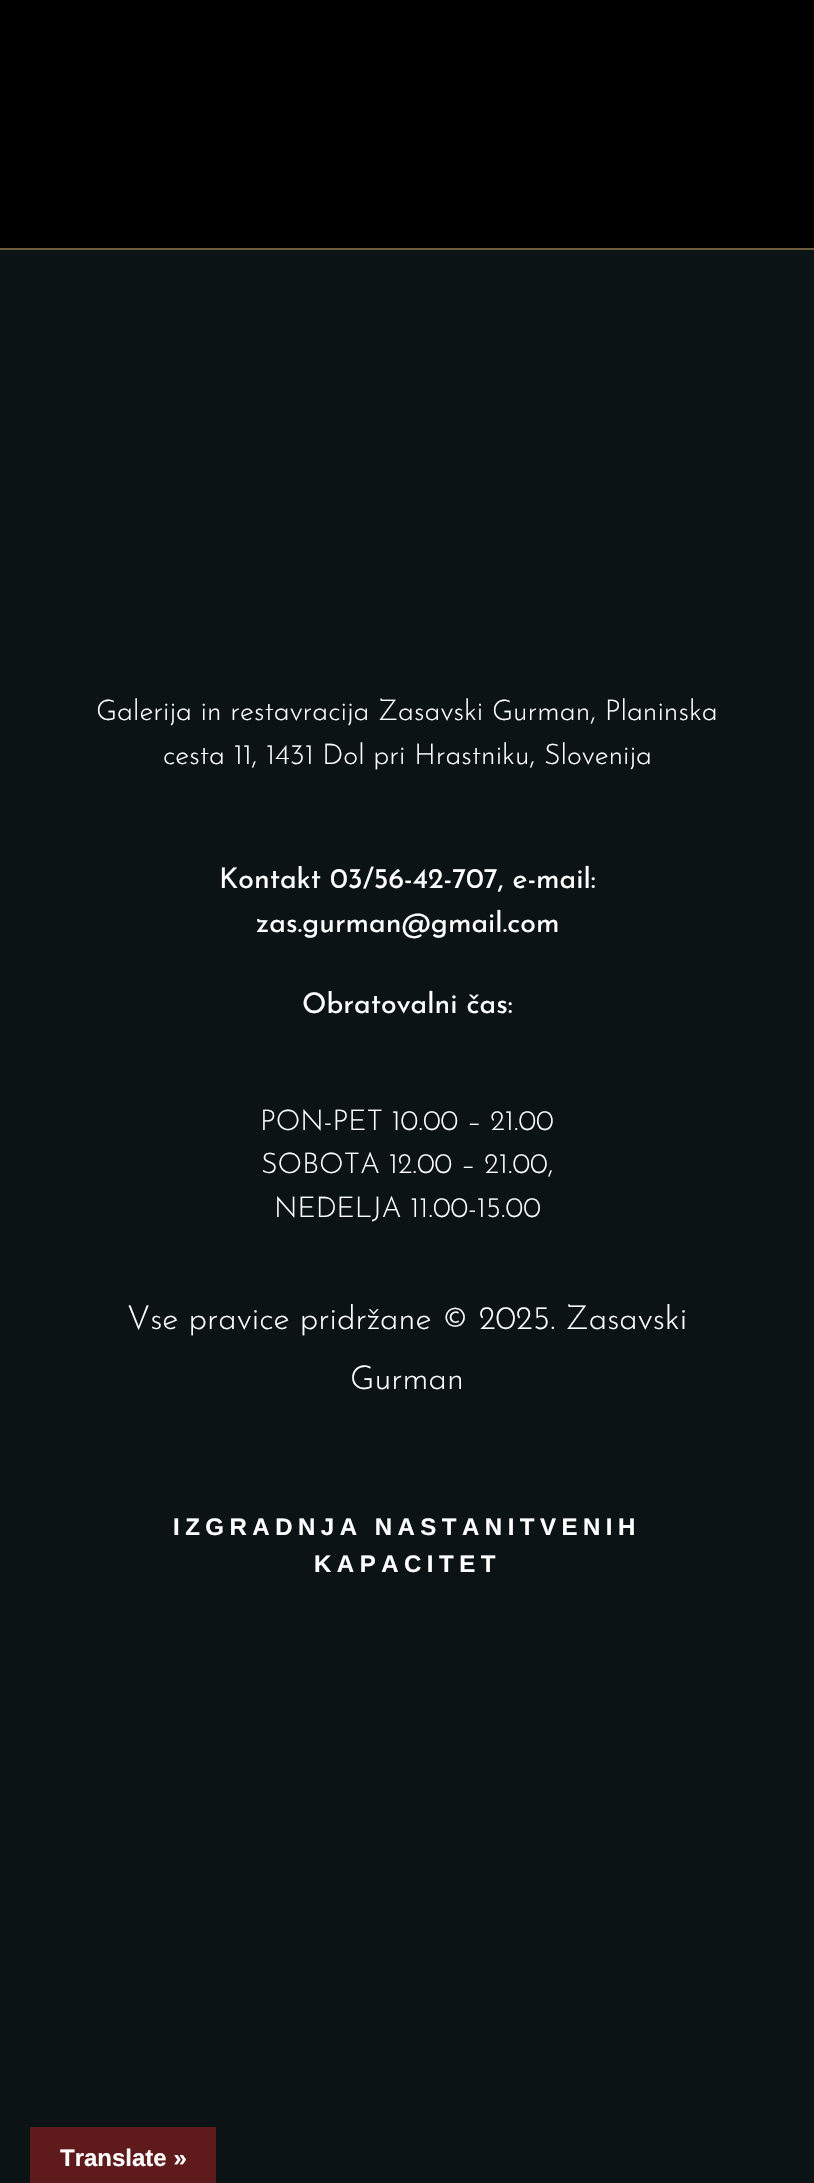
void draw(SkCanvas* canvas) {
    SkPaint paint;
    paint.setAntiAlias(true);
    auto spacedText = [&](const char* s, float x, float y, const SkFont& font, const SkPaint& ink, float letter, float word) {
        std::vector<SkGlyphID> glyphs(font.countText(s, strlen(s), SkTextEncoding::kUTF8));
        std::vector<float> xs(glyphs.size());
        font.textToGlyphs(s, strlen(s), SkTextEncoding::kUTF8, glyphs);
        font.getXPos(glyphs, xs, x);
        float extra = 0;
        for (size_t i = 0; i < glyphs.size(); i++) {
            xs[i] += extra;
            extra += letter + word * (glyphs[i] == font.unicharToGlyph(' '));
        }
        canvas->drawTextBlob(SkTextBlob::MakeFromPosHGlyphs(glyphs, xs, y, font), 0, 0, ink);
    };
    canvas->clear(0xFF0B1315);
    paint.setColor(0xFF000000);
    canvas->drawRect(SkRect::MakeXYWH(0, 0, 814, 248), paint);
    paint.setColor(0xFF715B3E);
    canvas->drawRect(SkRect::MakeXYWH(0, 248, 814, 2), paint);
    SkFont font1(fontMgr->matchFamilyStyle("Josefin Sans", SkFontStyle(300, SkFontStyle::kNormal_Width, SkFontStyle::kUpright_Slant)), 28.5f);
    font1.setSubpixel(true);
    paint.setColor(0xFFFFFFFF);
    canvas->drawString("Galerija in restavracija Zasavski Gurman, Planinska", 96, 720, font1, paint);
    canvas->drawString("cesta 11, 1431 Dol pri Hrastniku, Slovenija", 163, 764, font1, paint);
    SkFont font2(fontMgr->matchFamilyStyle("Josefin Sans", SkFontStyle::Normal()), 28.5f);
    font2.setSubpixel(true);
    canvas->drawString("Kontakt 03/56-42-707, e-mail:", 219, 888, font2, paint);
    canvas->drawString("zas.gurman@gmail.com", 256, 932, font2, paint);
    canvas->drawString("Obratovalni čas:", 302, 1013, font2, paint);
    canvas->drawString("PON-PET 10.00 – 21.00", 260, 1130, font1, paint);
    canvas->drawString("SOBOTA 12.00 – 21.00,", 261, 1173, font1, paint);
    canvas->drawString("NEDELJA 11.00-15.00", 274, 1217, font1, paint);
    SkFont font3(fontMgr->matchFamilyStyle("Josefin Sans", SkFontStyle(300, SkFontStyle::kNormal_Width, SkFontStyle::kUpright_Slant)), 33);
    font3.setSubpixel(true);
    canvas->drawString("Vse pravice pridržane © 2025. Zasavski", 127, 1329, font3, paint);
    canvas->drawString("Gurman", 350, 1389, font3, paint);
    SkFont font4(fontMgr->matchFamilyStyle("Liberation Sans", SkFontStyle::Bold()), 24);
    font4.setSubpixel(true);
    spacedText("IZGRADNJA NASTANITVENIH", 173, 1535, font4, paint, 5.5f, 0);
    spacedText("KAPACITET", 314, 1572, font4, paint, 5.5f, 0);
    paint.setColor(0xFF5F1A1B);
    canvas->drawRect(SkRect::MakeXYWH(30, 2127, 186, 56), paint);
    paint.setColor(0xFFFFFFFF);
    canvas->drawString("Translate »", 60, 2166, font4, paint);
}
